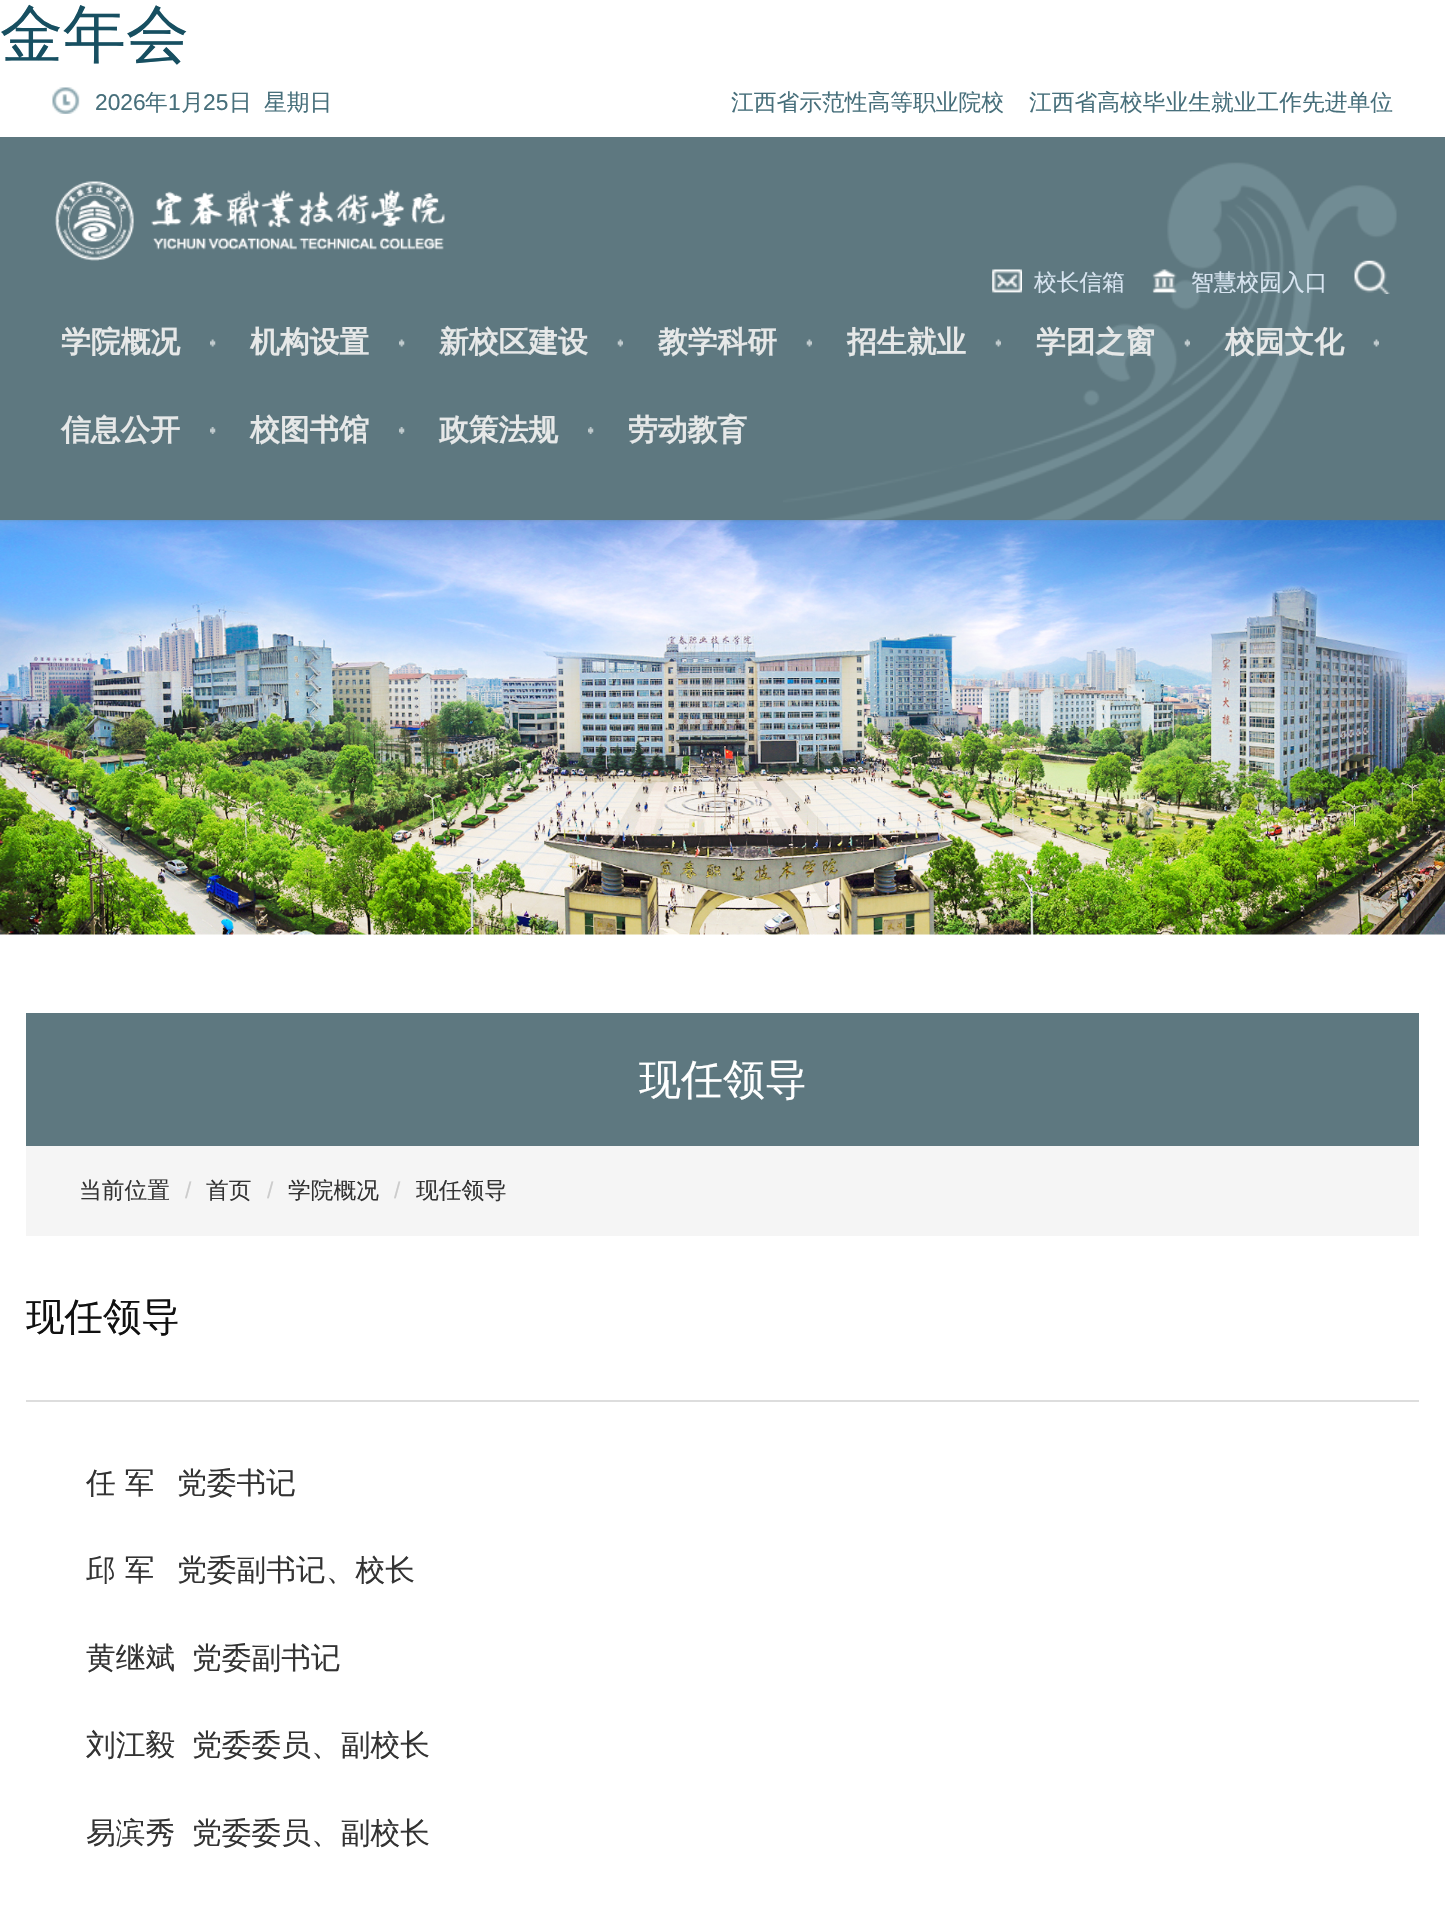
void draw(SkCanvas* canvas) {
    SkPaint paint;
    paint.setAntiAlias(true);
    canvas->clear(0xFFFFFFFF);
    SkFont font1(fontMgr->matchFamilyStyle("WenQuanYi Zen Hei", SkFontStyle(500, SkFontStyle::kNormal_Width, SkFontStyle::kUpright_Slant)), 63);
    font1.setSubpixel(true);
    paint.setColor(0xFF174F61);
    canvas->drawString("金年会", 0, 56, font1, paint);
    canvas->drawImageRect(SkImages::DeferredFromEncodedData(SkData::MakeFromFileName("img1.png")), SkRect::MakeXYWH(52, 87, 28, 27), SkSamplingOptions());
    SkFont font2(fontMgr->matchFamilyStyle("Liberation Sans", SkFontStyle::Normal()), 22.75f);
    font2.setSubpixel(true);
    paint.setColor(0xFF476F7B);
    canvas->drawString("2026", 95, 110, font2, paint);
    SkFont font3(fontMgr->matchFamilyStyle("WenQuanYi Zen Hei", SkFontStyle(500, SkFontStyle::kNormal_Width, SkFontStyle::kUpright_Slant)), 22.75f);
    font3.setSubpixel(true);
    canvas->drawString("年", 145, 110, font3, paint);
    canvas->drawString("1", 168, 110, font2, paint);
    canvas->drawString("月", 181, 110, font3, paint);
    canvas->drawString("25", 203, 110, font2, paint);
    canvas->drawString("日", 229, 110, font3, paint);
    canvas->drawString("星期日", 264, 110, font3, paint);
    canvas->drawString("江西省示范性高等职业院校", 731, 110, font3, paint);
    canvas->drawString("江西省高校毕业生就业工作先进单位", 1029, 110, font3, paint);
    paint.setColor(0xFF5E7880);
    canvas->drawRect(SkRect::MakeXYWH(0, 137, 1445, 383), paint);
    canvas->drawImageRect(SkImages::DeferredFromEncodedData(SkData::MakeFromFileName("img2.png")), SkRect::MakeXYWH(783, 162, 614, 358), SkSamplingOptions());
    canvas->drawImageRect(SkImages::DeferredFromEncodedData(SkData::MakeFromFileName("img3.png")), SkRect::MakeXYWH(55, 181, 390, 80), SkSamplingOptions());
    canvas->drawImageRect(SkImages::DeferredFromEncodedData(SkData::MakeFromFileName("img4.png")), SkRect::MakeXYWH(992, 269, 30, 24), SkSamplingOptions());
    paint.setColor(0xFFD8E5F1);
    canvas->drawString("校长信箱", 1034, 290, font3, paint);
    canvas->drawImageRect(SkImages::DeferredFromEncodedData(SkData::MakeFromFileName("img5.png")), SkRect::MakeXYWH(1152, 269, 25, 24), SkSamplingOptions());
    canvas->drawString("智慧校园入口", 1191, 290, font3, paint);
    canvas->drawImageRect(SkImages::DeferredFromEncodedData(SkData::MakeFromFileName("img6.png")), SkRect::MakeXYWH(1354, 260, 36, 34), SkSamplingOptions());
    canvas->drawImageRect(SkImages::DeferredFromEncodedData(SkData::MakeFromFileName("img7.png")), SkRect::MakeXYWH(210, 339, 6, 8), SkSamplingOptions());
    SkFont font4(fontMgr->matchFamilyStyle("WenQuanYi Zen Hei", SkFontStyle::Bold()), 29.75f);
    font4.setSubpixel(true);
    paint.setColor(0xFFE6E8E8);
    canvas->drawString("学院概况", 61, 352, font4, paint);
    canvas->drawImageRect(SkImages::DeferredFromEncodedData(SkData::MakeFromFileName("img7.png")), SkRect::MakeXYWH(399, 339, 6, 8), SkSamplingOptions());
    canvas->drawString("机构设置", 250, 352, font4, paint);
    canvas->drawImageRect(SkImages::DeferredFromEncodedData(SkData::MakeFromFileName("img8.png")), SkRect::MakeXYWH(617, 339, 6, 8), SkSamplingOptions());
    canvas->drawString("新校区建设", 439, 352, font4, paint);
    canvas->drawImageRect(SkImages::DeferredFromEncodedData(SkData::MakeFromFileName("img8.png")), SkRect::MakeXYWH(806, 339, 6, 8), SkSamplingOptions());
    canvas->drawString("教学科研", 658, 352, font4, paint);
    canvas->drawImageRect(SkImages::DeferredFromEncodedData(SkData::MakeFromFileName("img9.png")), SkRect::MakeXYWH(995, 339, 6, 8), SkSamplingOptions());
    canvas->drawString("招生就业", 847, 352, font4, paint);
    canvas->drawImageRect(SkImages::DeferredFromEncodedData(SkData::MakeFromFileName("img8.png")), SkRect::MakeXYWH(1184, 339, 6, 8), SkSamplingOptions());
    canvas->drawString("学团之窗", 1036, 352, font4, paint);
    canvas->drawImageRect(SkImages::DeferredFromEncodedData(SkData::MakeFromFileName("img9.png")), SkRect::MakeXYWH(1373, 339, 6, 8), SkSamplingOptions());
    canvas->drawString("校园文化", 1225, 352, font4, paint);
    canvas->drawImageRect(SkImages::DeferredFromEncodedData(SkData::MakeFromFileName("img10.png")), SkRect::MakeXYWH(210, 427, 6, 7), SkSamplingOptions());
    canvas->drawString("信息公开", 61, 440, font4, paint);
    canvas->drawImageRect(SkImages::DeferredFromEncodedData(SkData::MakeFromFileName("img10.png")), SkRect::MakeXYWH(399, 427, 6, 7), SkSamplingOptions());
    canvas->drawString("校图书馆", 250, 440, font4, paint);
    canvas->drawImageRect(SkImages::DeferredFromEncodedData(SkData::MakeFromFileName("img11.png")), SkRect::MakeXYWH(588, 427, 6, 7), SkSamplingOptions());
    canvas->drawString("政策法规", 439, 440, font4, paint);
    canvas->drawString("劳动教育", 628, 440, font4, paint);
    canvas->drawImageRect(SkImages::DeferredFromEncodedData(SkData::MakeFromFileName("img12.png")), SkRect::MakeXYWH(0, 520, 1445, 415), SkSamplingOptions());
    paint.setColor(0xFF5E7880);
    canvas->drawRect(SkRect::MakeXYWH(26, 1013, 1393, 133), paint);
    SkFont font5(fontMgr->matchFamilyStyle("WenQuanYi Zen Hei", SkFontStyle(500, SkFontStyle::kNormal_Width, SkFontStyle::kUpright_Slant)), 42);
    font5.setSubpixel(true);
    paint.setColor(0xFFFFFFFF);
    canvas->drawString("现任领导", 639, 1094, font5, paint);
    paint.setColor(0xFFF5F5F5);
    canvas->drawRect(SkRect::MakeXYWH(26, 1146, 1393, 90), paint);
    paint.setColor(0xFF333333);
    canvas->drawString("当前位置", 79, 1198, font3, paint);
    paint.setColor(0xFFCCCCCC);
    canvas->drawString("/", 185, 1198, font2, paint);
    paint.setColor(0xFF333333);
    canvas->drawString("首页", 206, 1198, font3, paint);
    paint.setColor(0xFFCCCCCC);
    canvas->drawString("/", 267, 1198, font2, paint);
    paint.setColor(0xFF333333);
    canvas->drawString("学院概况", 288, 1198, font3, paint);
    paint.setColor(0xFFCCCCCC);
    canvas->drawString("/", 394, 1198, font2, paint);
    paint.setColor(0xFF333333);
    canvas->drawString("现任领导", 416, 1198, font3, paint);
    paint.setColor(0xFFDDDDDD);
    canvas->drawRect(SkRect::MakeXYWH(26, 1400, 1393, 2), paint);
    SkFont font6(fontMgr->matchFamilyStyle("WenQuanYi Zen Hei", SkFontStyle(500, SkFontStyle::kNormal_Width, SkFontStyle::kUpright_Slant)), 38.5f);
    font6.setSubpixel(true);
    paint.setColor(0xFF111111);
    canvas->drawString("现任领导", 26, 1330, font6, paint);
    SkFont font7(fontMgr->matchFamilyStyle("WenQuanYi Zen Hei", SkFontStyle(500, SkFontStyle::kNormal_Width, SkFontStyle::kUpright_Slant)), 29.75f);
    font7.setSubpixel(true);
    paint.setColor(0xFF333333);
    canvas->drawString("任 军", 86, 1493, font7, paint);
    canvas->drawString("党委书记", 177, 1493, font7, paint);
    canvas->drawString("邱 军", 86, 1580, font7, paint);
    canvas->drawString("党委副书记、校长", 177, 1580, font7, paint);
    canvas->drawString("黄继斌", 86, 1668, font7, paint);
    canvas->drawString("党委副书记", 192, 1668, font7, paint);
    canvas->drawString("刘江毅", 86, 1755, font7, paint);
    canvas->drawString("党委委员、副校长", 192, 1755, font7, paint);
    canvas->drawString("易滨秀", 86, 1843, font7, paint);
    canvas->drawString("党委委员、副校长", 192, 1843, font7, paint);
}
